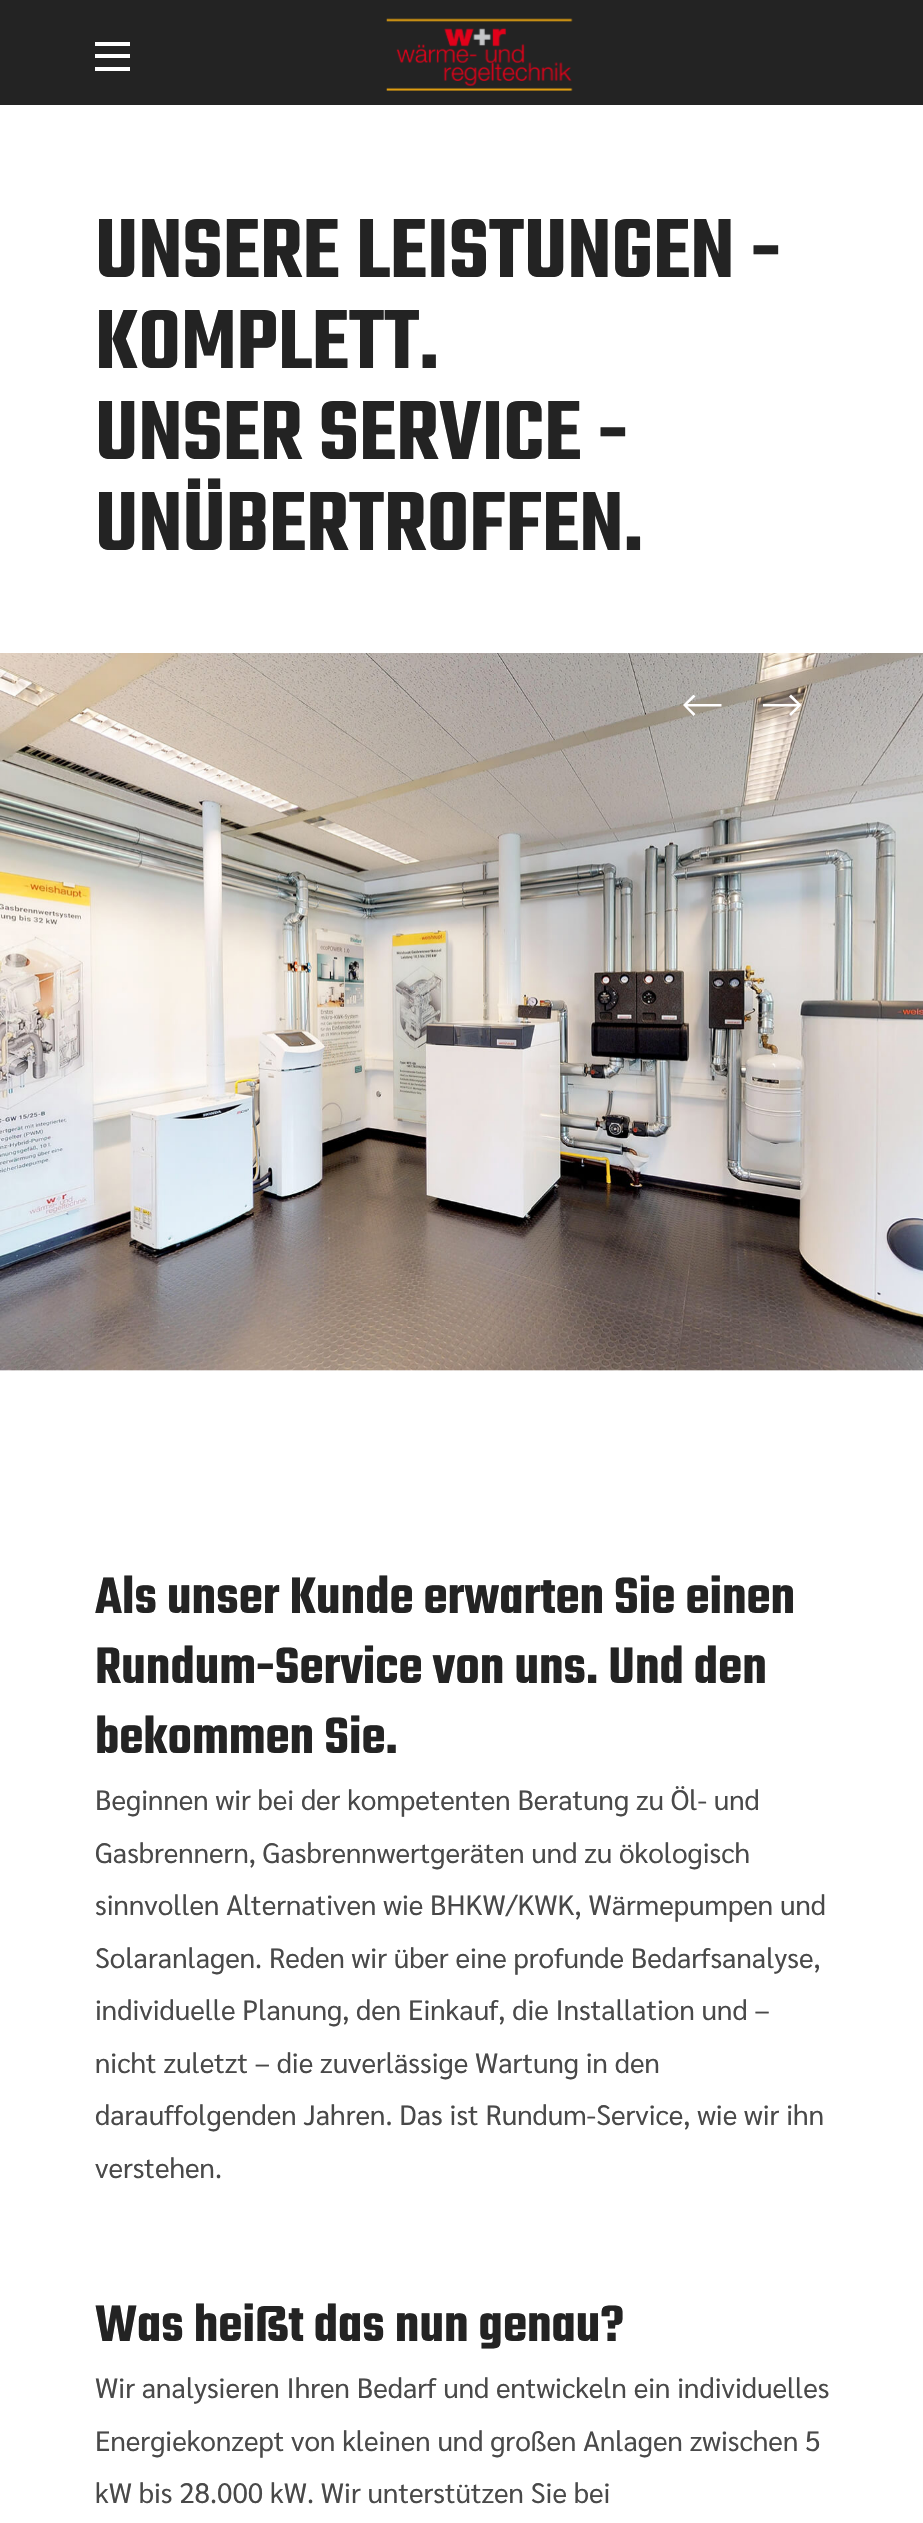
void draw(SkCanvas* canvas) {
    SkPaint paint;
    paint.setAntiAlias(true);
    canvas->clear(0xFFFFFFFF);
    paint.setColor(0xFF232323);
    canvas->drawRect(SkRect::MakeXYWH(0, 0, 923, 105), paint);
    paint.setColor(0xFFFFFFFF);
    canvas->drawRect(SkRect::MakeXYWH(95, 42, 35, 4), paint);
    canvas->drawRect(SkRect::MakeXYWH(95, 54, 35, 4), paint);
    canvas->drawRect(SkRect::MakeXYWH(95, 67, 35, 4), paint);
    canvas->drawImageRect(SkImages::DeferredFromEncodedData(SkData::MakeFromFileName("img1.png")), SkRect::MakeXYWH(386, 18, 187, 73), SkSamplingOptions());
    SkFont font1(fontMgr->matchFamilyStyle("Teko", SkFontStyle(600, SkFontStyle::kNormal_Width, SkFontStyle::kUpright_Slant)), 91);
    font1.setSubpixel(true);
    paint.setColor(0xFF232323);
    canvas->drawString("UNSERE LEISTUNGEN -", 95, 277, font1, paint);
    canvas->drawString("KOMPLETT.", 95, 368, font1, paint);
    canvas->drawString("UNSER SERVICE -", 95, 459, font1, paint);
    canvas->drawString("UNÜBERTROFFEN.", 95, 550, font1, paint);
    canvas->drawImageRect(SkImages::DeferredFromEncodedData(SkData::MakeFromFileName("img2.png")), SkRect::MakeXYWH(0, 653, 923, 718), SkSamplingOptions());
    paint.setColor(0xFFFFFFFF);
    canvas->drawPath(SkPathBuilder().moveTo(693.5f, 716).lineTo(695.5f, 714).lineTo(687.5f, 706.5f).lineTo(721.5f, 706.5f).lineTo(721.5f, 704).lineTo(687.5f, 704).lineTo(695.5f, 696.5f).lineTo(693.5f, 694.5f).lineTo(683, 705).close().detach(), paint);
    canvas->drawPath(SkPathBuilder().moveTo(791, 694.5f).lineTo(789, 696.5f).lineTo(797, 704).lineTo(763, 704).lineTo(763, 706.5f).lineTo(797, 706.5f).lineTo(789, 714).lineTo(791, 716).lineTo(801.5f, 705).close().detach(), paint);
    SkFont font2(fontMgr->matchFamilyStyle("Teko", SkFontStyle(600, SkFontStyle::kNormal_Width, SkFontStyle::kUpright_Slant)), 56);
    font2.setSubpixel(true);
    paint.setColor(0xFF232323);
    canvas->drawString("Als unser Kunde erwarten Sie einen", 95, 1613, font2, paint);
    canvas->drawString("Rundum-Service von uns. Und den", 95, 1683, font2, paint);
    canvas->drawString("bekommen Sie.", 95, 1753, font2, paint);
    SkFont font3(fontMgr->matchFamilyStyle("Sarabun", SkFontStyle::Normal()), 28);
    font3.setSubpixel(true);
    paint.setColor(0xFF494949);
    canvas->drawString("Beginnen wir bei der kompetenten Beratung zu Öl- und", 95, 1810, font3, paint);
    canvas->drawString("Gasbrennern, Gasbrennwertgeräten und zu ökologisch", 95, 1863, font3, paint);
    canvas->drawString("sinnvollen Alternativen wie BHKW/KWK, Wärmepumpen und", 95, 1915, font3, paint);
    canvas->drawString("Solaranlagen. Reden wir über eine profunde Bedarfsanalyse,", 95, 1968, font3, paint);
    canvas->drawString("individuelle Planung, den Einkauf, die Installation und –", 95, 2020, font3, paint);
    canvas->drawString("nicht zuletzt – die zuverlässige Wartung in den", 95, 2073, font3, paint);
    canvas->drawString("darauffolgenden Jahren. Das ist Rundum-Service, wie wir ihn", 95, 2125, font3, paint);
    canvas->drawString("verstehen.", 95, 2178, font3, paint);
    paint.setColor(0xFF232323);
    canvas->drawString("Was heißt das nun genau?", 95, 2341, font2, paint);
    paint.setColor(0xFF494949);
    canvas->drawString("Wir analysieren Ihren Bedarf und entwickeln ein individuelles", 95, 2398, font3, paint);
    canvas->drawString("Energiekonzept von kleinen und großen Anlagen zwischen 5", 95, 2451, font3, paint);
    canvas->drawString("kW bis 28.000 kW. Wir unterstützen Sie bei", 95, 2503, font3, paint);
}
